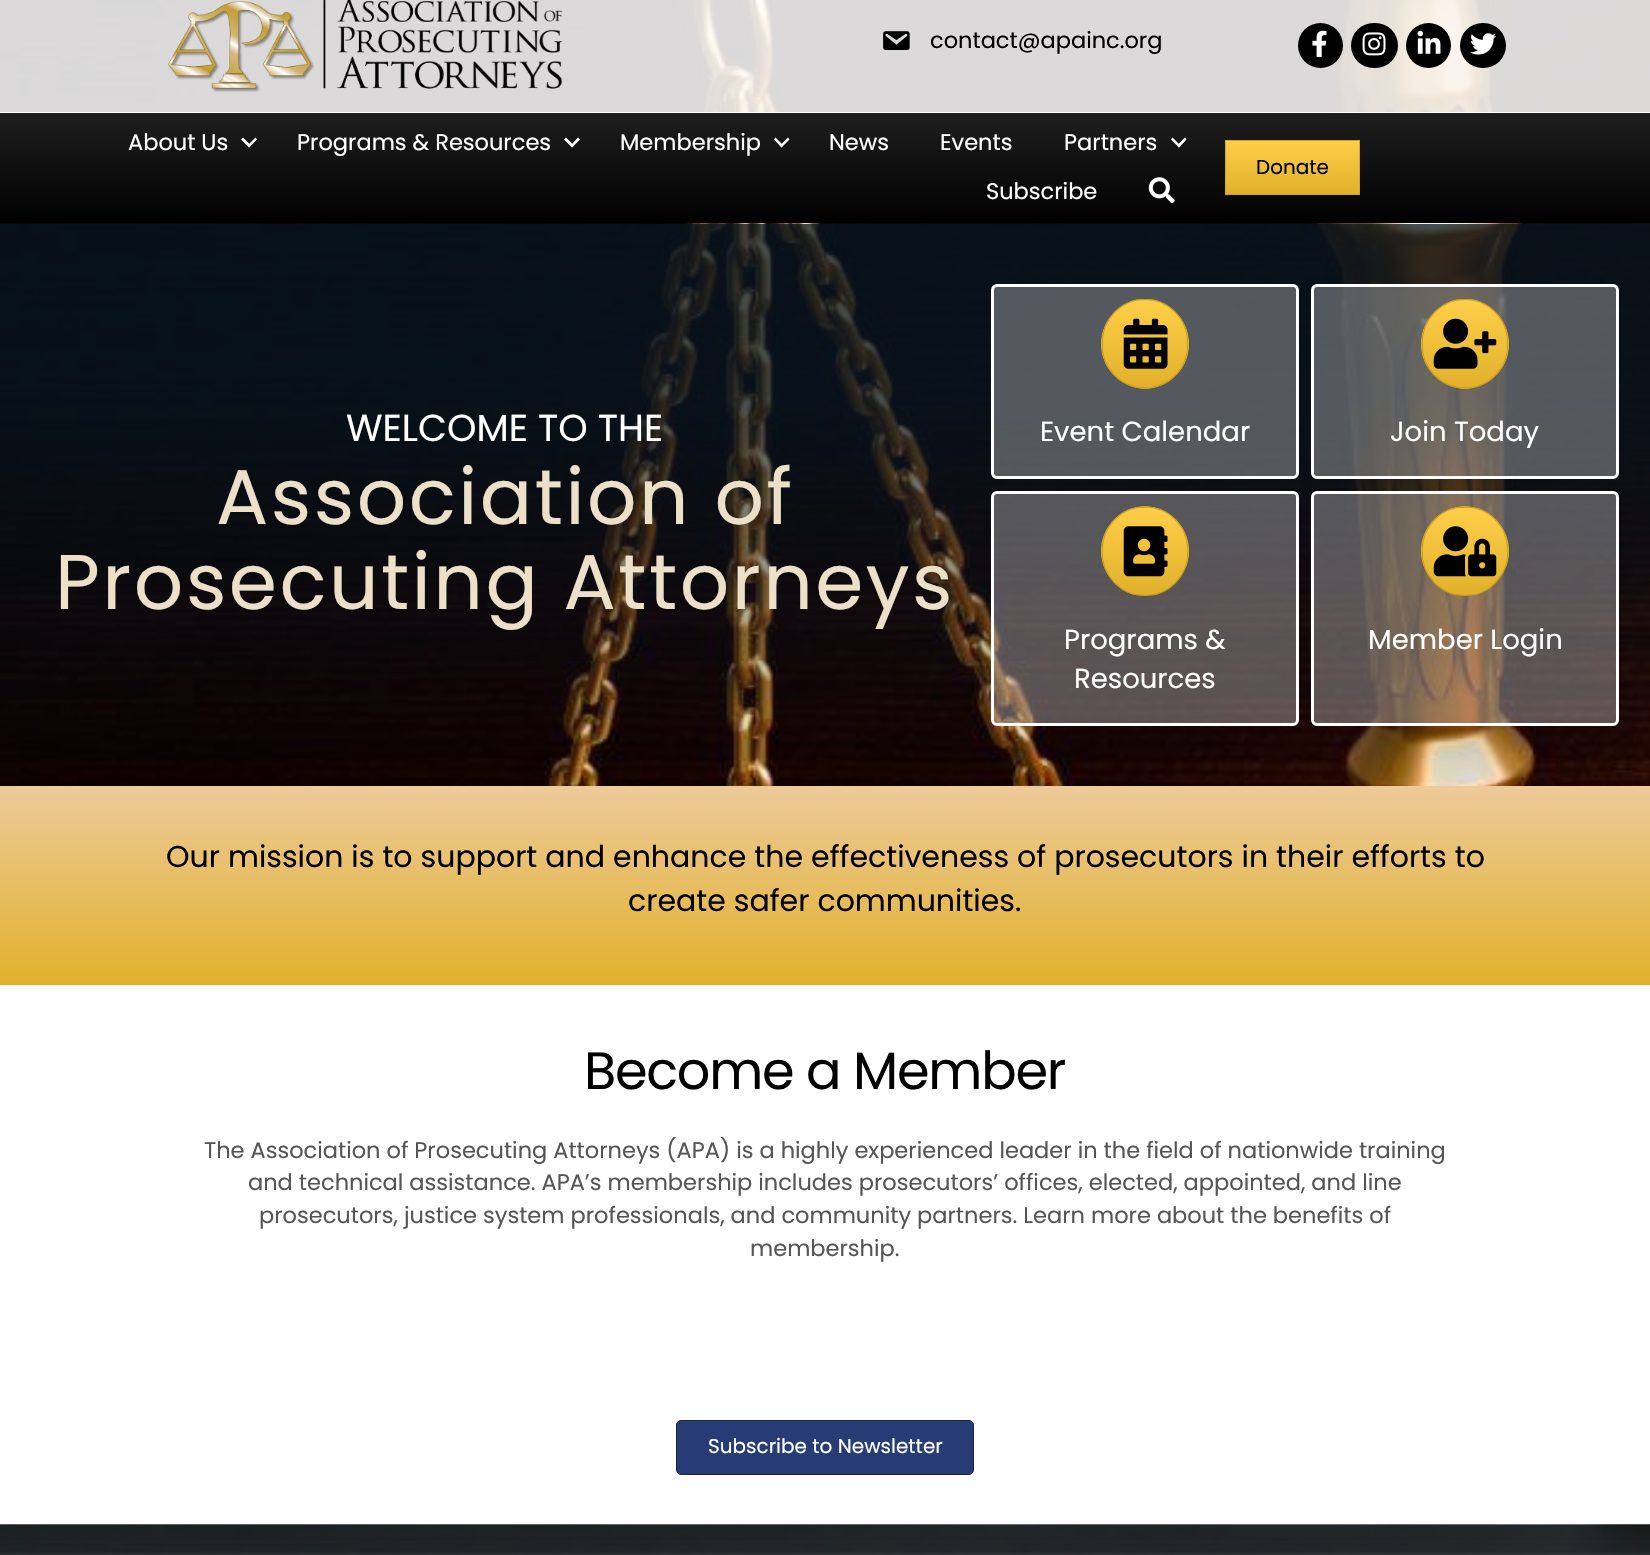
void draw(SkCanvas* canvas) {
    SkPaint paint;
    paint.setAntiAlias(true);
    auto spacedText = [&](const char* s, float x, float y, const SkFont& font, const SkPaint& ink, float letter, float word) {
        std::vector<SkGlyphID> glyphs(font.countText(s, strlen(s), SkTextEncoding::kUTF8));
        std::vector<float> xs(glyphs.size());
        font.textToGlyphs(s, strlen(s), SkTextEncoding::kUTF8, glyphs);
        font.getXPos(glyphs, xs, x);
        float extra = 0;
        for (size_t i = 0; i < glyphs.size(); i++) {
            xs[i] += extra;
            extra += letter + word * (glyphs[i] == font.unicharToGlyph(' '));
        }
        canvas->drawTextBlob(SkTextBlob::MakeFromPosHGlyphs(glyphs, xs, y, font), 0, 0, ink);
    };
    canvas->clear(0xFFFFFFFF);
    canvas->drawImageRect(SkImages::DeferredFromEncodedData(SkData::MakeFromFileName("img1.png")), SkRect::MakeXYWH(0, 0, 1650, 112), SkSamplingOptions());
    canvas->drawImageRect(SkImages::DeferredFromEncodedData(SkData::MakeFromFileName("img2.png")), SkRect::MakeXYWH(167, 0, 396, 92), SkSamplingOptions());
    canvas->drawImageRect(SkImages::DeferredFromEncodedData(SkData::MakeFromFileName("img3.png")), SkRect::MakeXYWH(883, 31, 27, 19), SkSamplingOptions());
    SkFont font1(fontMgr->matchFamilyStyle("Poppins", SkFontStyle::Normal()), 22.5f);
    font1.setSubpixel(true);
    paint.setColor(0xFF000000);
    canvas->drawString("contact@apainc.org", 930, 48, font1, paint);
    canvas->drawCircle(1320.5f, 45.5f, 22.5f, paint);
    canvas->drawImageRect(SkImages::DeferredFromEncodedData(SkData::MakeFromFileName("img4.png")), SkRect::MakeXYWH(1312, 30, 15, 27), SkSamplingOptions());
    canvas->drawRoundRect(SkRect::MakeXYWH(1351, 23, 47, 45), 22.5f, 22.5f, paint);
    canvas->drawImageRect(SkImages::DeferredFromEncodedData(SkData::MakeFromFileName("img5.png")), SkRect::MakeXYWH(1362, 32, 24, 24), SkSamplingOptions());
    canvas->drawCircle(1428.5f, 45.5f, 22.5f, paint);
    canvas->drawImageRect(SkImages::DeferredFromEncodedData(SkData::MakeFromFileName("img6.png")), SkRect::MakeXYWH(1417, 30, 24, 24), SkSamplingOptions());
    canvas->drawRoundRect(SkRect::MakeXYWH(1460, 23, 46, 45), 22.5f, 22.5f, paint);
    canvas->drawImageRect(SkImages::DeferredFromEncodedData(SkData::MakeFromFileName("img7.png")), SkRect::MakeXYWH(1470, 33, 27, 22), SkSamplingOptions());
    {
        const SkColor colors[] = {0xFF1F1F1F, 0xFF000000};
        const float stops[] = {0, 1};
        const SkPoint ends[] = {{825, 112}, {825, 224}};
        paint.setShader(SkGradientShader::MakeLinear(ends, colors, stops, 2, SkTileMode::kClamp));
        paint.setAlpha(255);
    }
    canvas->drawRect(SkRect::MakeXYWH(0, 113, 1650, 110), paint);
    paint.setShader(nullptr);
    paint.setColor(0xFFFFFFFF);
    canvas->drawString("About Us", 128, 150, font1, paint);
    canvas->drawPath(SkPathBuilder().moveTo(255.5f, 137.5f).lineTo(257, 139.5f).lineTo(249, 147.5f).lineTo(247.5f, 145.5f).close().detach(), paint);
    canvas->drawPath(SkPathBuilder().moveTo(243, 137.5f).lineTo(251, 145.5f).lineTo(249, 147.5f).lineTo(241, 139.5f).close().detach(), paint);
    canvas->drawString("Programs & Resources", 297, 150, font1, paint);
    canvas->drawPath(SkPathBuilder().moveTo(578, 137.5f).lineTo(580, 139.5f).lineTo(572, 147.5f).lineTo(570.5f, 145.5f).close().detach(), paint);
    canvas->drawPath(SkPathBuilder().moveTo(566, 137.5f).lineTo(574, 145.5f).lineTo(572, 147.5f).lineTo(564, 139.5f).close().detach(), paint);
    canvas->drawString("Membership", 620, 150, font1, paint);
    canvas->drawPath(SkPathBuilder().moveTo(788, 137.5f).lineTo(789.5f, 139.5f).lineTo(781.5f, 147.5f).lineTo(780, 145.5f).close().detach(), paint);
    canvas->drawPath(SkPathBuilder().moveTo(775.5f, 137.5f).lineTo(783.5f, 145.5f).lineTo(781.5f, 147.5f).lineTo(774, 139.5f).close().detach(), paint);
    canvas->drawString("News", 829, 150, font1, paint);
    canvas->drawString("Events", 940, 150, font1, paint);
    canvas->drawString("Partners", 1064, 150, font1, paint);
    canvas->drawPath(SkPathBuilder().moveTo(1185, 137.5f).lineTo(1186.5f, 139.5f).lineTo(1179, 147.5f).lineTo(1177, 145.5f).close().detach(), paint);
    canvas->drawPath(SkPathBuilder().moveTo(1172.5f, 137.5f).lineTo(1180.5f, 145.5f).lineTo(1179, 147.5f).lineTo(1171, 139.5f).close().detach(), paint);
    canvas->drawString("Subscribe", 986, 199, font1, paint);
    canvas->drawImageRect(SkImages::DeferredFromEncodedData(SkData::MakeFromFileName("img8.png")), SkRect::MakeXYWH(1148, 177, 27, 27), SkSamplingOptions());
    {
        const SkColor colors[] = {0xFFFFCF4A, 0xFFE1B12C};
        const float stops[] = {0, 1};
        const SkPoint ends[] = {{1293, 141}, {1293, 194}};
        paint.setShader(SkGradientShader::MakeLinear(ends, colors, stops, 2, SkTileMode::kClamp));
        paint.setAlpha(255);
    }
    canvas->drawRect(SkRect::MakeXYWH(1226, 141, 133, 53), paint);
    paint.setStyle(SkPaint::kStroke_Style);
    paint.setStrokeWidth(1);
    paint.setShader(nullptr);
    paint.setColor(0xFFD5A520);
    canvas->drawRect(SkRect::MakeXYWH(1225.5f, 140.5f, 134, 54), paint);
    SkFont font2(fontMgr->matchFamilyStyle("Poppins", SkFontStyle::Normal()), 20);
    font2.setSubpixel(true);
    paint.setStyle(SkPaint::kFill_Style);
    paint.setColor(0xFF000000);
    canvas->drawString("Donate", 1256, 174, font2, paint);
    canvas->drawImageRect(SkImages::DeferredFromEncodedData(SkData::MakeFromFileName("img9.png")), SkRect::MakeXYWH(0, 223, 1650, 563), SkSamplingOptions());
    SkFont font3(fontMgr->matchFamilyStyle("Poppins", SkFontStyle::Normal()), 37.5f);
    font3.setSubpixel(true);
    paint.setColor(0xFFFFFFFF);
    canvas->drawString("WELCOME TO THE", 346, 441, font3, paint);
    SkFont font4(fontMgr->matchFamilyStyle("Poppins", SkFontStyle::Normal()), 77.5f);
    font4.setSubpixel(true);
    paint.setColor(0xFFECE0C9);
    spacedText("Association of", 216, 524, font4, paint, 2.5f, 0);
    spacedText("Prosecuting Attorneys", 55, 609, font4, paint, 2.5f, 0);
    paint.setColor(0x4DFFFFFF);
    canvas->drawRoundRect(SkRect::MakeXYWH(992.5f, 285.5f, 305, 192), 4.5f, 4.5f, paint);
    paint.setStyle(SkPaint::kStroke_Style);
    paint.setStrokeWidth(3);
    paint.setColor(0xFFFFFFFF);
    canvas->drawRoundRect(SkRect::MakeXYWH(992.5f, 285.5f, 305, 192), 4.5f, 4.5f, paint);
    paint.setStyle(SkPaint::kFill_Style);
    {
        const SkColor colors[] = {0xFFFFCF4A, 0xFFE1B12C};
        const float stops[] = {0, 1};
        const SkPoint ends[] = {{1145, 213}, {1145, 300}};
        paint.setShader(SkGradientShader::MakeLinear(ends, colors, stops, 2, SkTileMode::kClamp));
        paint.setAlpha(255);
    }
    canvas->drawPath(SkPathBuilder().moveTo(1145, 299).cubicTo(1148.5f, 299, 1152, 299, 1155.5f, 300).lineTo(1134.5f, 300).cubicTo(1138, 299, 1141.5f, 299, 1145, 299).close().detach(), paint);
    {
        const SkColor colors[] = {0xFFFFCF4A, 0xFFE1B12C};
        const float stops[] = {0, 1};
        const SkPoint ends[] = {{1145, 300}, {1145, 388}};
        paint.setShader(SkGradientShader::MakeLinear(ends, colors, stops, 2, SkTileMode::kClamp));
        paint.setAlpha(255);
    }
    canvas->drawPath(SkPathBuilder().moveTo(1137, 388).cubicTo(1117, 384, 1101, 366, 1101, 344).cubicTo(1101, 323, 1116, 305, 1135, 300).lineTo(1155, 300).cubicTo(1174, 305, 1189, 323, 1189, 344).cubicTo(1189, 366, 1173, 384, 1153, 388).close().detach(), paint);
    {
        const SkColor colors[] = {0xFFFFCF4A, 0xFFE1B12C};
        const float stops[] = {0, 1};
        const SkPoint ends[] = {{1145, 388}, {1145, 475}};
        paint.setShader(SkGradientShader::MakeLinear(ends, colors, stops, 2, SkTileMode::kClamp));
        paint.setAlpha(255);
    }
    canvas->drawPath(SkPathBuilder().moveTo(1153, 388).cubicTo(1147.5f, 389, 1142.5f, 389, 1137, 388).close().detach(), paint);
    paint.setStyle(SkPaint::kStroke_Style);
    paint.setStrokeWidth(1.2f);
    paint.setShader(nullptr);
    paint.setColor(0xFFCD9D18);
    canvas->drawPath(SkPathBuilder().moveTo(1145, 299.5f).cubicTo(1169, 299.5f, 1188, 319, 1188, 344).cubicTo(1188, 368.5f, 1169, 388, 1145, 388).cubicTo(1121, 388, 1102, 368.5f, 1102, 344).cubicTo(1102, 319, 1121, 299.5f, 1145, 299.5f).close().detach(), paint);
    canvas->drawImageRect(SkImages::DeferredFromEncodedData(SkData::MakeFromFileName("img10.png")), SkRect::MakeXYWH(1123, 318, 45, 51), SkSamplingOptions());
    SkFont font5(fontMgr->matchFamilyStyle("Poppins", SkFontStyle::Normal()), 27.5f);
    font5.setSubpixel(true);
    paint.setStyle(SkPaint::kFill_Style);
    paint.setColor(0xFFFFFFFF);
    canvas->drawString("Event Calendar", 1040, 441, font5, paint);
    paint.setColor(0x4DFFFFFF);
    canvas->drawRoundRect(SkRect::MakeXYWH(1312.5f, 285.5f, 305, 192), 4.5f, 4.5f, paint);
    paint.setStyle(SkPaint::kStroke_Style);
    paint.setStrokeWidth(3);
    paint.setColor(0xFFFFFFFF);
    canvas->drawRoundRect(SkRect::MakeXYWH(1312.5f, 285.5f, 305, 192), 4.5f, 4.5f, paint);
    paint.setStyle(SkPaint::kFill_Style);
    {
        const SkColor colors[] = {0xFFFFCF4A, 0xFFE1B12C};
        const float stops[] = {0, 1};
        const SkPoint ends[] = {{1465, 213}, {1465, 300}};
        paint.setShader(SkGradientShader::MakeLinear(ends, colors, stops, 2, SkTileMode::kClamp));
        paint.setAlpha(255);
    }
    canvas->drawPath(SkPathBuilder().moveTo(1465, 299).cubicTo(1468.5f, 299, 1472, 299, 1475.5f, 300).lineTo(1454.5f, 300).cubicTo(1458, 299, 1461.5f, 299, 1465, 299).close().detach(), paint);
    {
        const SkColor colors[] = {0xFFFFCF4A, 0xFFE1B12C};
        const float stops[] = {0, 1};
        const SkPoint ends[] = {{1465, 300}, {1465, 388}};
        paint.setShader(SkGradientShader::MakeLinear(ends, colors, stops, 2, SkTileMode::kClamp));
        paint.setAlpha(255);
    }
    canvas->drawPath(SkPathBuilder().moveTo(1457, 388).cubicTo(1437, 384, 1421, 366, 1421, 344).cubicTo(1421, 323, 1436, 305, 1455, 300).lineTo(1475, 300).cubicTo(1494, 305, 1509, 323, 1509, 344).cubicTo(1509, 366, 1493, 384, 1473, 388).close().detach(), paint);
    {
        const SkColor colors[] = {0xFFFFCF4A, 0xFFE1B12C};
        const float stops[] = {0, 1};
        const SkPoint ends[] = {{1465, 388}, {1465, 475}};
        paint.setShader(SkGradientShader::MakeLinear(ends, colors, stops, 2, SkTileMode::kClamp));
        paint.setAlpha(255);
    }
    canvas->drawPath(SkPathBuilder().moveTo(1473, 388).cubicTo(1467.5f, 389, 1462.5f, 389, 1457, 388).close().detach(), paint);
    paint.setStyle(SkPaint::kStroke_Style);
    paint.setStrokeWidth(1.2f);
    paint.setShader(nullptr);
    paint.setColor(0xFFCD9D18);
    canvas->drawPath(SkPathBuilder().moveTo(1465, 299.5f).cubicTo(1489, 299.5f, 1508, 319, 1508, 344).cubicTo(1508, 368.5f, 1489, 388, 1465, 388).cubicTo(1441, 388, 1422, 368.5f, 1422, 344).cubicTo(1422, 319, 1441, 299.5f, 1465, 299.5f).close().detach(), paint);
    canvas->drawImageRect(SkImages::DeferredFromEncodedData(SkData::MakeFromFileName("img11.png")), SkRect::MakeXYWH(1433, 318, 64, 51), SkSamplingOptions());
    paint.setStyle(SkPaint::kFill_Style);
    paint.setColor(0xFFFFFFFF);
    canvas->drawString("Join Today", 1390, 441, font5, paint);
    paint.setColor(0x4DFFFFFF);
    canvas->drawRoundRect(SkRect::MakeXYWH(992.5f, 492.5f, 305, 232), 4.5f, 4.5f, paint);
    paint.setStyle(SkPaint::kStroke_Style);
    paint.setStrokeWidth(3);
    paint.setColor(0xFFFFFFFF);
    canvas->drawRoundRect(SkRect::MakeXYWH(992.5f, 492.5f, 305, 232), 4.5f, 4.5f, paint);
    paint.setStyle(SkPaint::kFill_Style);
    {
        const SkColor colors[] = {0xFFFFCF4A, 0xFFE1B12C};
        const float stops[] = {0, 1};
        const SkPoint ends[] = {{1145, 420}, {1145, 508}};
        paint.setShader(SkGradientShader::MakeLinear(ends, colors, stops, 2, SkTileMode::kClamp));
        paint.setAlpha(255);
    }
    canvas->drawPath(SkPathBuilder().moveTo(1145, 506).cubicTo(1149, 506, 1153.5f, 507, 1157, 508).lineTo(1133, 508).cubicTo(1136.5f, 507, 1141, 506, 1145, 506).close().detach(), paint);
    {
        const SkColor colors[] = {0xFFFFCF4A, 0xFFE1B12C};
        const float stops[] = {0, 1};
        const SkPoint ends[] = {{1145, 508}, {1145, 595}};
        paint.setShader(SkGradientShader::MakeLinear(ends, colors, stops, 2, SkTileMode::kClamp));
        paint.setAlpha(255);
    }
    canvas->drawPath(SkPathBuilder().moveTo(1135, 595).cubicTo(1116, 590, 1101, 572, 1101, 551).cubicTo(1101, 531, 1115, 513, 1133, 508).lineTo(1157, 508).cubicTo(1175, 513, 1189, 531, 1189, 551).cubicTo(1189, 572, 1174, 590, 1155, 595).close().detach(), paint);
    paint.setStyle(SkPaint::kStroke_Style);
    paint.setStrokeWidth(1.2f);
    paint.setShader(nullptr);
    paint.setColor(0xFFCD9D18);
    canvas->drawPath(SkPathBuilder().moveTo(1145, 507).cubicTo(1169, 507, 1188, 526.5f, 1188, 551).cubicTo(1188, 576, 1169, 595.5f, 1145, 595.5f).cubicTo(1121, 595.5f, 1102, 576, 1102, 551).cubicTo(1102, 526.5f, 1121, 507, 1145, 507).close().detach(), paint);
    canvas->drawImageRect(SkImages::DeferredFromEncodedData(SkData::MakeFromFileName("img12.png")), SkRect::MakeXYWH(1123, 526, 45, 51), SkSamplingOptions());
    paint.setStyle(SkPaint::kFill_Style);
    paint.setColor(0xFFFFFFFF);
    canvas->drawString("Programs &", 1064, 649, font5, paint);
    canvas->drawString("Resources", 1074, 688, font5, paint);
    paint.setColor(0x4DFFFFFF);
    canvas->drawRoundRect(SkRect::MakeXYWH(1312.5f, 492.5f, 305, 232), 4.5f, 4.5f, paint);
    paint.setStyle(SkPaint::kStroke_Style);
    paint.setStrokeWidth(3);
    paint.setColor(0xFFFFFFFF);
    canvas->drawRoundRect(SkRect::MakeXYWH(1312.5f, 492.5f, 305, 232), 4.5f, 4.5f, paint);
    paint.setStyle(SkPaint::kFill_Style);
    {
        const SkColor colors[] = {0xFFFFCF4A, 0xFFE1B12C};
        const float stops[] = {0, 1};
        const SkPoint ends[] = {{1465, 420}, {1465, 508}};
        paint.setShader(SkGradientShader::MakeLinear(ends, colors, stops, 2, SkTileMode::kClamp));
        paint.setAlpha(255);
    }
    canvas->drawPath(SkPathBuilder().moveTo(1465, 506).cubicTo(1469, 506, 1473.5f, 507, 1477, 508).lineTo(1453, 508).cubicTo(1456.5f, 507, 1461, 506, 1465, 506).close().detach(), paint);
    {
        const SkColor colors[] = {0xFFFFCF4A, 0xFFE1B12C};
        const float stops[] = {0, 1};
        const SkPoint ends[] = {{1465, 508}, {1465, 595}};
        paint.setShader(SkGradientShader::MakeLinear(ends, colors, stops, 2, SkTileMode::kClamp));
        paint.setAlpha(255);
    }
    canvas->drawPath(SkPathBuilder().moveTo(1455, 595).cubicTo(1436, 590, 1421, 572, 1421, 551).cubicTo(1421, 531, 1435, 513, 1453, 508).lineTo(1477, 508).cubicTo(1495, 513, 1509, 531, 1509, 551).cubicTo(1509, 572, 1494, 590, 1475, 595).close().detach(), paint);
    paint.setStyle(SkPaint::kStroke_Style);
    paint.setStrokeWidth(1.2f);
    paint.setShader(nullptr);
    paint.setColor(0xFFCD9D18);
    canvas->drawPath(SkPathBuilder().moveTo(1465, 507).cubicTo(1489, 507, 1508, 526.5f, 1508, 551).cubicTo(1508, 576, 1489, 595.5f, 1465, 595.5f).cubicTo(1441, 595.5f, 1422, 576, 1422, 551).cubicTo(1422, 526.5f, 1441, 507, 1465, 507).close().detach(), paint);
    canvas->drawImageRect(SkImages::DeferredFromEncodedData(SkData::MakeFromFileName("img13.png")), SkRect::MakeXYWH(1433, 526, 64, 51), SkSamplingOptions());
    paint.setStyle(SkPaint::kFill_Style);
    paint.setColor(0xFFFFFFFF);
    canvas->drawString("Member Login", 1368, 649, font5, paint);
    {
        const SkColor colors[] = {0xFFEDCA9A, 0xFFE1B12C};
        const float stops[] = {0, 1};
        const SkPoint ends[] = {{825, 786}, {825, 985}};
        paint.setShader(SkGradientShader::MakeLinear(ends, colors, stops, 2, SkTileMode::kClamp));
        paint.setAlpha(255);
    }
    canvas->drawRect(SkRect::MakeXYWH(0, 786, 1650, 199), paint);
    SkFont font6(fontMgr->matchFamilyStyle("Poppins", SkFontStyle::Normal()), 30);
    font6.setSubpixel(true);
    paint.setShader(nullptr);
    paint.setColor(0xFF000000);
    canvas->drawString("Our mission is to support and enhance the effectiveness of prosecutors in their efforts to", 166, 867, font6, paint);
    canvas->drawString("create safer communities.", 628, 911, font6, paint);
    SkFont font7(fontMgr->matchFamilyStyle("Poppins", SkFontStyle::Normal()), 52.5f);
    font7.setSubpixel(true);
    spacedText("Become a Member", 584, 1089, font7, paint, -1.25f, 0);
    paint.setColor(0xFF555555);
    canvas->drawString("The Association of Prosecuting Attorneys (APA) is a highly experienced leader in the field of nationwide training", 204, 1158, font1, paint);
    canvas->drawString("and technical assistance. APA’s membership includes prosecutors’ offices, elected, appointed, and line", 248, 1190, font1, paint);
    canvas->drawString("prosecutors, justice system professionals, and community partners. Learn more about the benefits of", 259, 1223, font1, paint);
    canvas->drawString("membership.", 750, 1256, font1, paint);
    paint.setColor(0xFF273C75);
    canvas->drawRoundRect(SkRect::MakeXYWH(676.5f, 1420.5f, 297, 54), 4.5f, 4.5f, paint);
    paint.setStyle(SkPaint::kStroke_Style);
    paint.setStrokeWidth(1);
    paint.setColor(0xFF182447);
    canvas->drawRoundRect(SkRect::MakeXYWH(676.5f, 1420.5f, 297, 54), 4.5f, 4.5f, paint);
    paint.setStyle(SkPaint::kFill_Style);
    paint.setColor(0xFFFFFFFF);
    canvas->drawString("Subscribe to Newsletter", 708, 1453, font2, paint);
    canvas->drawImageRect(SkImages::DeferredFromEncodedData(SkData::MakeFromFileName("img14.png")), SkRect::MakeXYWH(0, 1524, 1650, 31), SkSamplingOptions());
}
